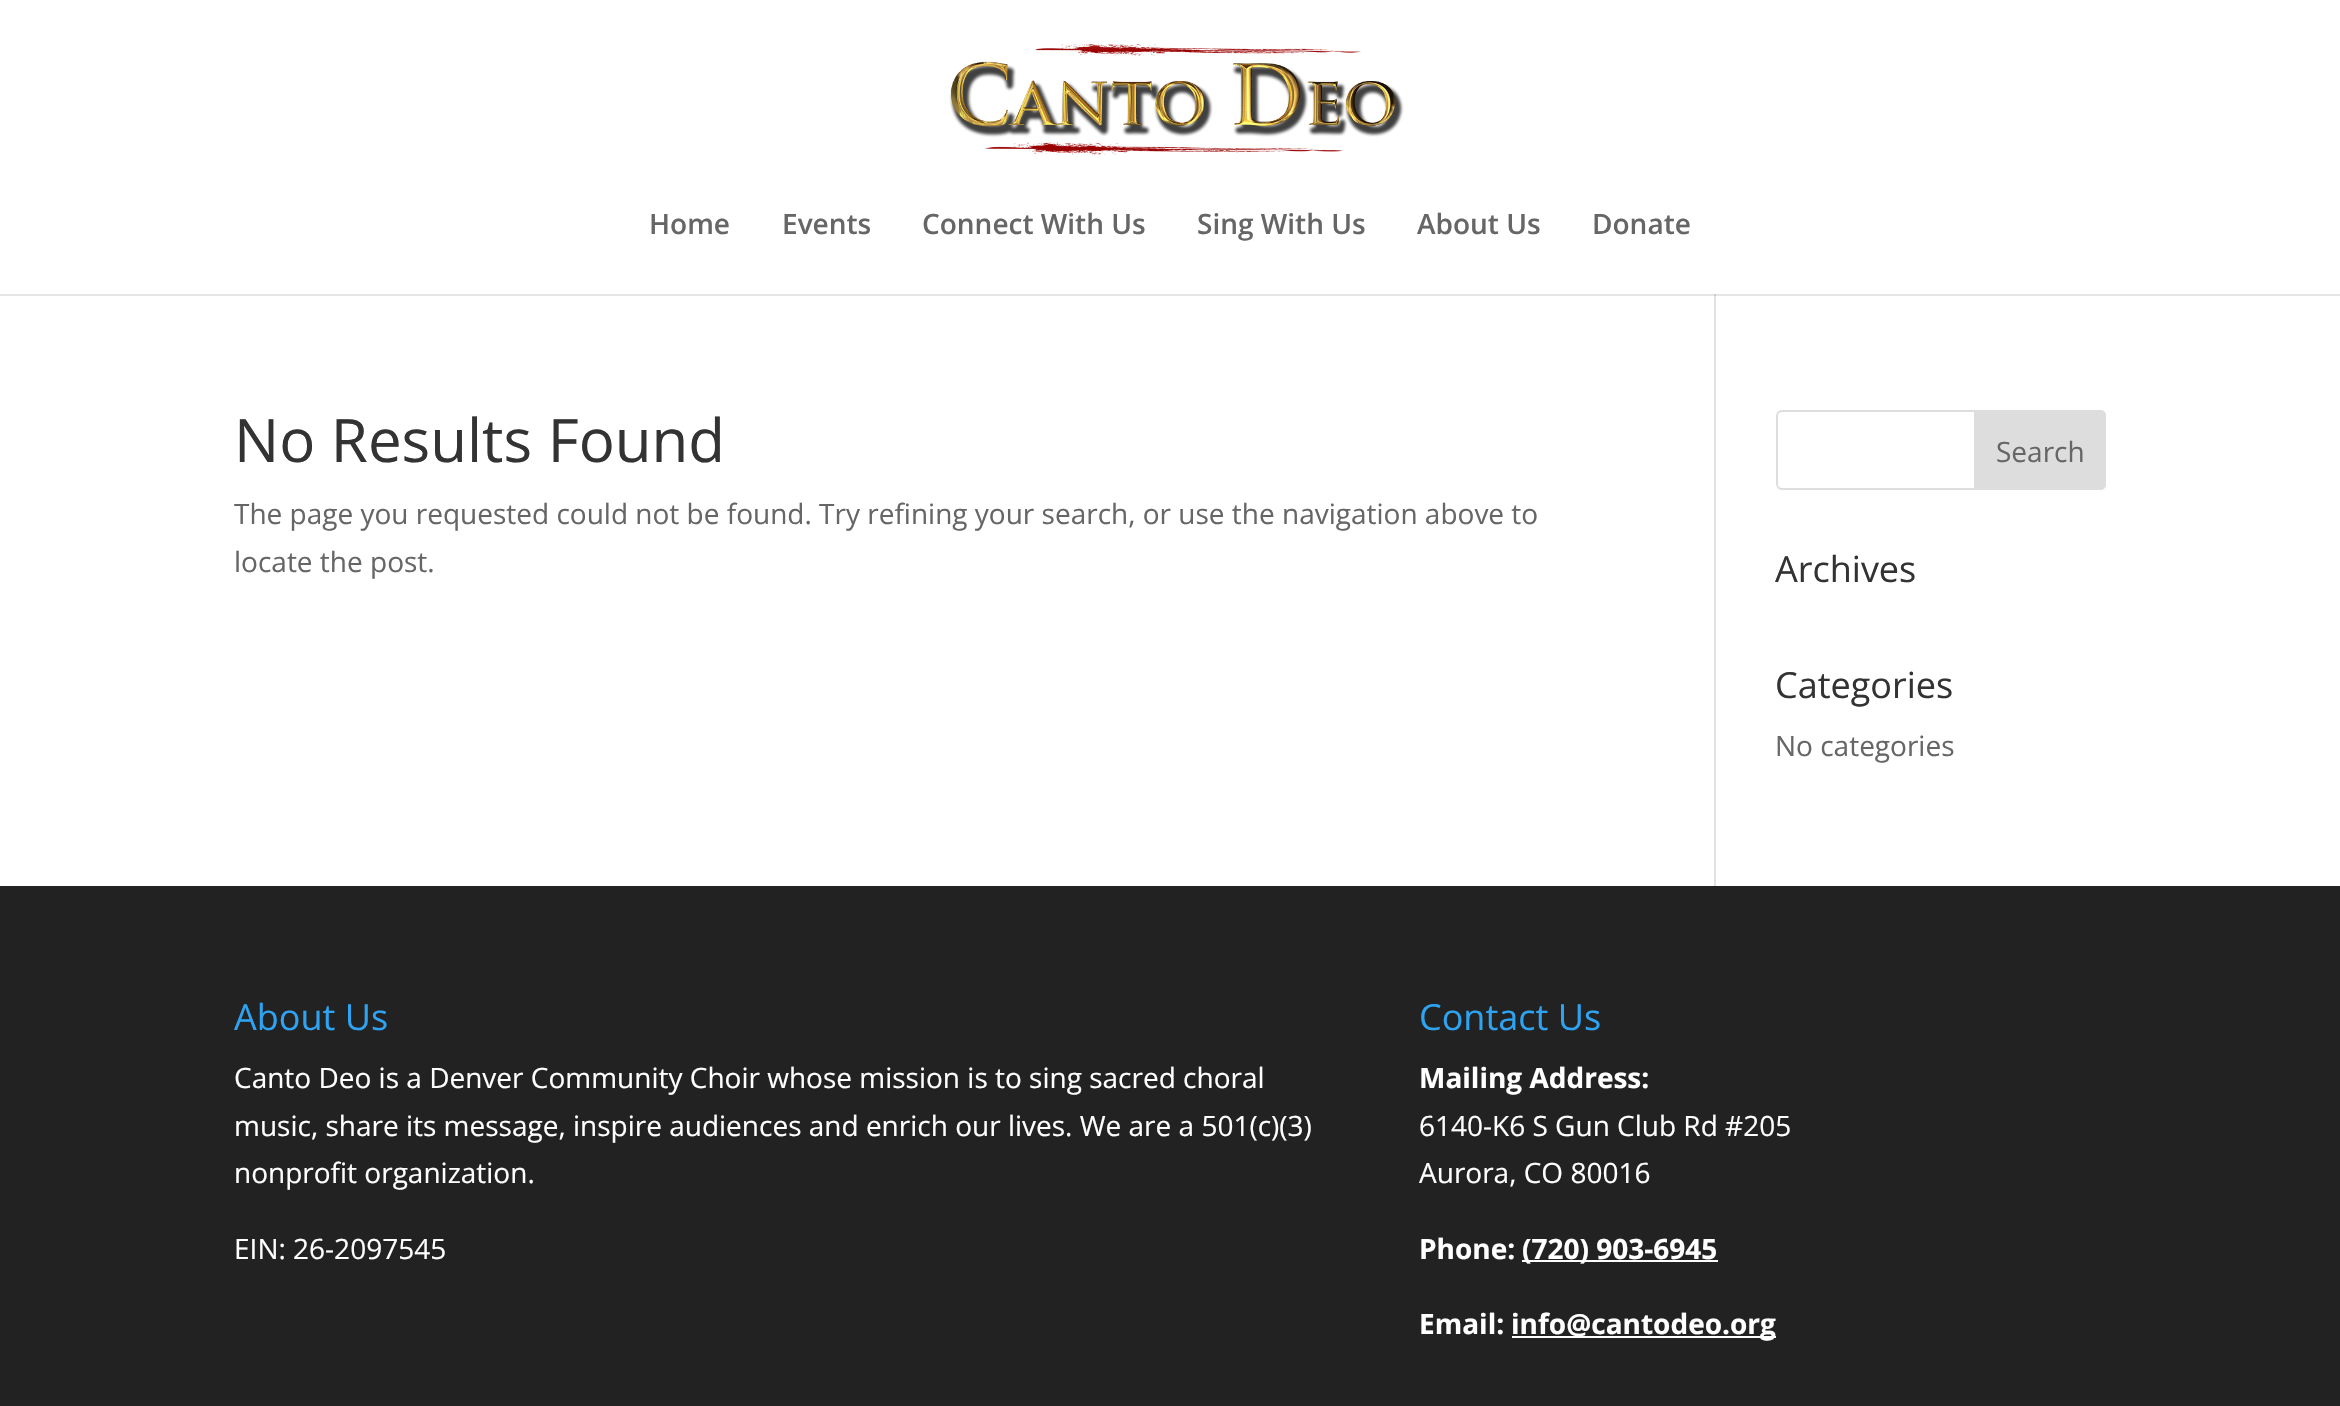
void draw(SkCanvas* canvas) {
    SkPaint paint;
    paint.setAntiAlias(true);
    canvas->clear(0xFFFFFFFF);
    paint.setColor(0xFFE6E6E6);
    canvas->drawRect(SkRect::MakeXYWH(0, 294, 2340, 2), paint);
    canvas->drawImageRect(SkImages::DeferredFromEncodedData(SkData::MakeFromFileName("img1.png")), SkRect::MakeXYWH(949, 43, 455, 112), SkSamplingOptions());
    SkFont font1(fontMgr->matchFamilyStyle("Open Sans", SkFontStyle(600, SkFontStyle::kNormal_Width, SkFontStyle::kUpright_Slant)), 28);
    font1.setSubpixel(true);
    paint.setColor(0xFF666666);
    canvas->drawString("Home", 649, 234, font1, paint);
    canvas->drawString("Events", 782, 234, font1, paint);
    canvas->drawString("Connect With Us", 922, 234, font1, paint);
    canvas->drawString("Sing With Us", 1197, 234, font1, paint);
    canvas->drawString("About Us", 1417, 234, font1, paint);
    canvas->drawString("Donate", 1592, 234, font1, paint);
    paint.setColor(0xFFE2E2E2);
    canvas->drawRect(SkRect::MakeXYWH(1714, 294, 2, 592), paint);
    paint.setColor(0xFFCBCBCB);
    canvas->drawRect(SkRect::MakeXYWH(1714, 294, 2, 2), paint);
    SkFont font2(fontMgr->matchFamilyStyle("Open Sans", SkFontStyle::Normal()), 60);
    font2.setSubpixel(true);
    paint.setColor(0xFF333333);
    canvas->drawString("No Results Found", 234, 462, font2, paint);
    SkFont font3(fontMgr->matchFamilyStyle("Open Sans", SkFontStyle::Normal()), 28);
    font3.setSubpixel(true);
    paint.setColor(0xFF666666);
    canvas->drawString("The page you requested could not be found. Try refining your search, or use the navigation above to", 234, 524, font3, paint);
    canvas->drawString("locate the post.", 234, 572, font3, paint);
    paint.setStyle(SkPaint::kStroke_Style);
    paint.setStrokeWidth(2);
    paint.setColor(0xFFDDDDDD);
    canvas->drawRoundRect(SkRect::MakeXYWH(1777, 411, 328, 78), 5, 5, paint);
    paint.setStyle(SkPaint::kFill_Style);
    canvas->drawPath(SkPathBuilder().moveTo(1975, 411).lineTo(2100, 411).cubicTo(2103, 411, 2105, 413, 2105, 416).lineTo(2105, 484).cubicTo(2105, 487, 2103, 489, 2100, 489).lineTo(1975, 489).close().detach(), paint);
    paint.setStyle(SkPaint::kStroke_Style);
    canvas->drawPath(SkPathBuilder().moveTo(1975, 411).lineTo(2100, 411).cubicTo(2103, 411, 2105, 413, 2105, 416).lineTo(2105, 484).cubicTo(2105, 487, 2103, 489, 2100, 489).lineTo(1975, 489).close().detach(), paint);
    paint.setStyle(SkPaint::kFill_Style);
    paint.setColor(0xFF666666);
    canvas->drawString("Search", 1996, 462, font3, paint);
    SkFont font4(fontMgr->matchFamilyStyle("Open Sans", SkFontStyle::Normal()), 36);
    font4.setSubpixel(true);
    paint.setColor(0xFF333333);
    canvas->drawString("Archives", 1775, 582, font4, paint);
    canvas->drawString("Categories", 1775, 698, font4, paint);
    paint.setColor(0xFF666666);
    canvas->drawString("No categories", 1775, 756, font3, paint);
    paint.setColor(0xFF222222);
    canvas->drawRect(SkRect::MakeXYWH(0, 886, 2340, 520), paint);
    paint.setColor(0xFF2EA3F2);
    canvas->drawString("About Us", 234, 1030, font4, paint);
    paint.setColor(0xFFFFFFFF);
    canvas->drawString("Canto Deo is a Denver Community Choir whose mission is to sing sacred choral", 234, 1088, font3, paint);
    canvas->drawString("music, share its message, inspire audiences and enrich our lives. We are a 501(c)(3)", 234, 1136, font3, paint);
    canvas->drawString("nonprofit organization.", 234, 1183, font3, paint);
    canvas->drawString("EIN: 26-2097545", 234, 1259, font3, paint);
    paint.setColor(0xFF2EA3F2);
    canvas->drawString("Contact Us", 1419, 1030, font4, paint);
    SkFont font5(fontMgr->matchFamilyStyle("Open Sans", SkFontStyle::Bold()), 28);
    font5.setSubpixel(true);
    paint.setColor(0xFFFFFFFF);
    canvas->drawString("Mailing Address:", 1419, 1088, font5, paint);
    canvas->drawString("6140-K6 S Gun Club Rd #205", 1419, 1136, font3, paint);
    canvas->drawString("Aurora, CO 80016", 1419, 1183, font3, paint);
    canvas->drawString("Phone:", 1419, 1259, font5, paint);
    canvas->drawRect(SkRect::MakeXYWH(1522, 1260, 196, 2), paint);
    canvas->drawString("(720) 903-6945", 1522, 1259, font5, paint);
    canvas->drawString("Email:", 1419, 1334, font5, paint);
    canvas->drawRect(SkRect::MakeXYWH(1512, 1336, 264, 2), paint);
    canvas->drawString("info@cantodeo.org", 1511, 1334, font5, paint);
}
